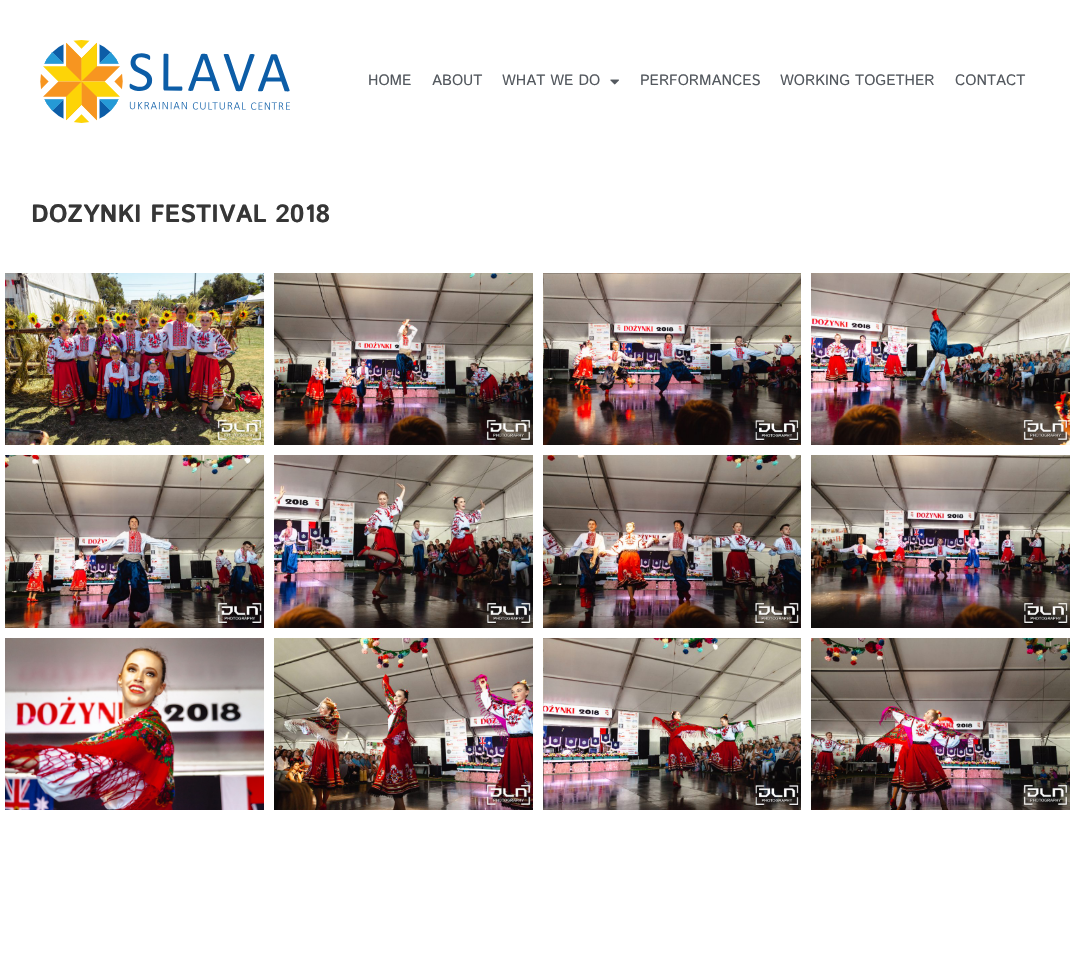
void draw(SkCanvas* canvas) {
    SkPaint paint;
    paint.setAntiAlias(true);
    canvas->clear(0xFFFFFFFF);
    canvas->drawImageRect(SkImages::DeferredFromEncodedData(SkData::MakeFromFileName("img1.png")), SkRect::MakeXYWH(40, 40, 250, 83), SkSamplingOptions());
    SkFont font1(fontMgr->matchFamilyStyle("Istok Web", SkFontStyle::Normal()), 15);
    font1.setSubpixel(true);
    paint.setColor(0xFF54595F);
    canvas->drawString("HOME", 368, 85, font1, paint);
    canvas->drawString("ABOUT", 432, 85, font1, paint);
    canvas->drawString("WHAT WE DO", 502, 85, font1, paint);
    canvas->drawImageRect(SkImages::DeferredFromEncodedData(SkData::MakeFromFileName("img2.png")), SkRect::MakeXYWH(610, 79, 9, 6), SkSamplingOptions());
    canvas->drawString("PERFORMANCES", 640, 85, font1, paint);
    canvas->drawString("WORKING TOGETHER", 780, 85, font1, paint);
    canvas->drawString("CONTACT", 955, 85, font1, paint);
    SkFont font2(fontMgr->matchFamilyStyle("Istok Web", SkFontStyle::Bold()), 25);
    font2.setSubpixel(true);
    paint.setColor(0xFF363636);
    canvas->drawString("DOZYNKI FESTIVAL 2018", 31, 222, font2, paint);
    canvas->drawImageRect(SkImages::DeferredFromEncodedData(SkData::MakeFromFileName("img3.png")), SkRect::MakeXYWH(5, 273, 259, 172), SkSamplingOptions());
    canvas->drawImageRect(SkImages::DeferredFromEncodedData(SkData::MakeFromFileName("img4.png")), SkRect::MakeXYWH(274, 273, 259, 172), SkSamplingOptions());
    canvas->drawImageRect(SkImages::DeferredFromEncodedData(SkData::MakeFromFileName("img5.png")), SkRect::MakeXYWH(543, 273, 258, 172), SkSamplingOptions());
    canvas->drawImageRect(SkImages::DeferredFromEncodedData(SkData::MakeFromFileName("img6.png")), SkRect::MakeXYWH(811, 273, 259, 172), SkSamplingOptions());
    canvas->drawImageRect(SkImages::DeferredFromEncodedData(SkData::MakeFromFileName("img7.png")), SkRect::MakeXYWH(5, 455, 259, 173), SkSamplingOptions());
    canvas->drawImageRect(SkImages::DeferredFromEncodedData(SkData::MakeFromFileName("img8.png")), SkRect::MakeXYWH(274, 455, 259, 173), SkSamplingOptions());
    canvas->drawImageRect(SkImages::DeferredFromEncodedData(SkData::MakeFromFileName("img9.png")), SkRect::MakeXYWH(543, 455, 258, 173), SkSamplingOptions());
    canvas->drawImageRect(SkImages::DeferredFromEncodedData(SkData::MakeFromFileName("img10.png")), SkRect::MakeXYWH(811, 455, 259, 173), SkSamplingOptions());
    canvas->drawImageRect(SkImages::DeferredFromEncodedData(SkData::MakeFromFileName("img11.png")), SkRect::MakeXYWH(5, 638, 259, 172), SkSamplingOptions());
    canvas->drawImageRect(SkImages::DeferredFromEncodedData(SkData::MakeFromFileName("img12.png")), SkRect::MakeXYWH(274, 638, 259, 172), SkSamplingOptions());
    canvas->drawImageRect(SkImages::DeferredFromEncodedData(SkData::MakeFromFileName("img13.png")), SkRect::MakeXYWH(543, 638, 258, 172), SkSamplingOptions());
    canvas->drawImageRect(SkImages::DeferredFromEncodedData(SkData::MakeFromFileName("img14.png")), SkRect::MakeXYWH(811, 638, 259, 172), SkSamplingOptions());
}
